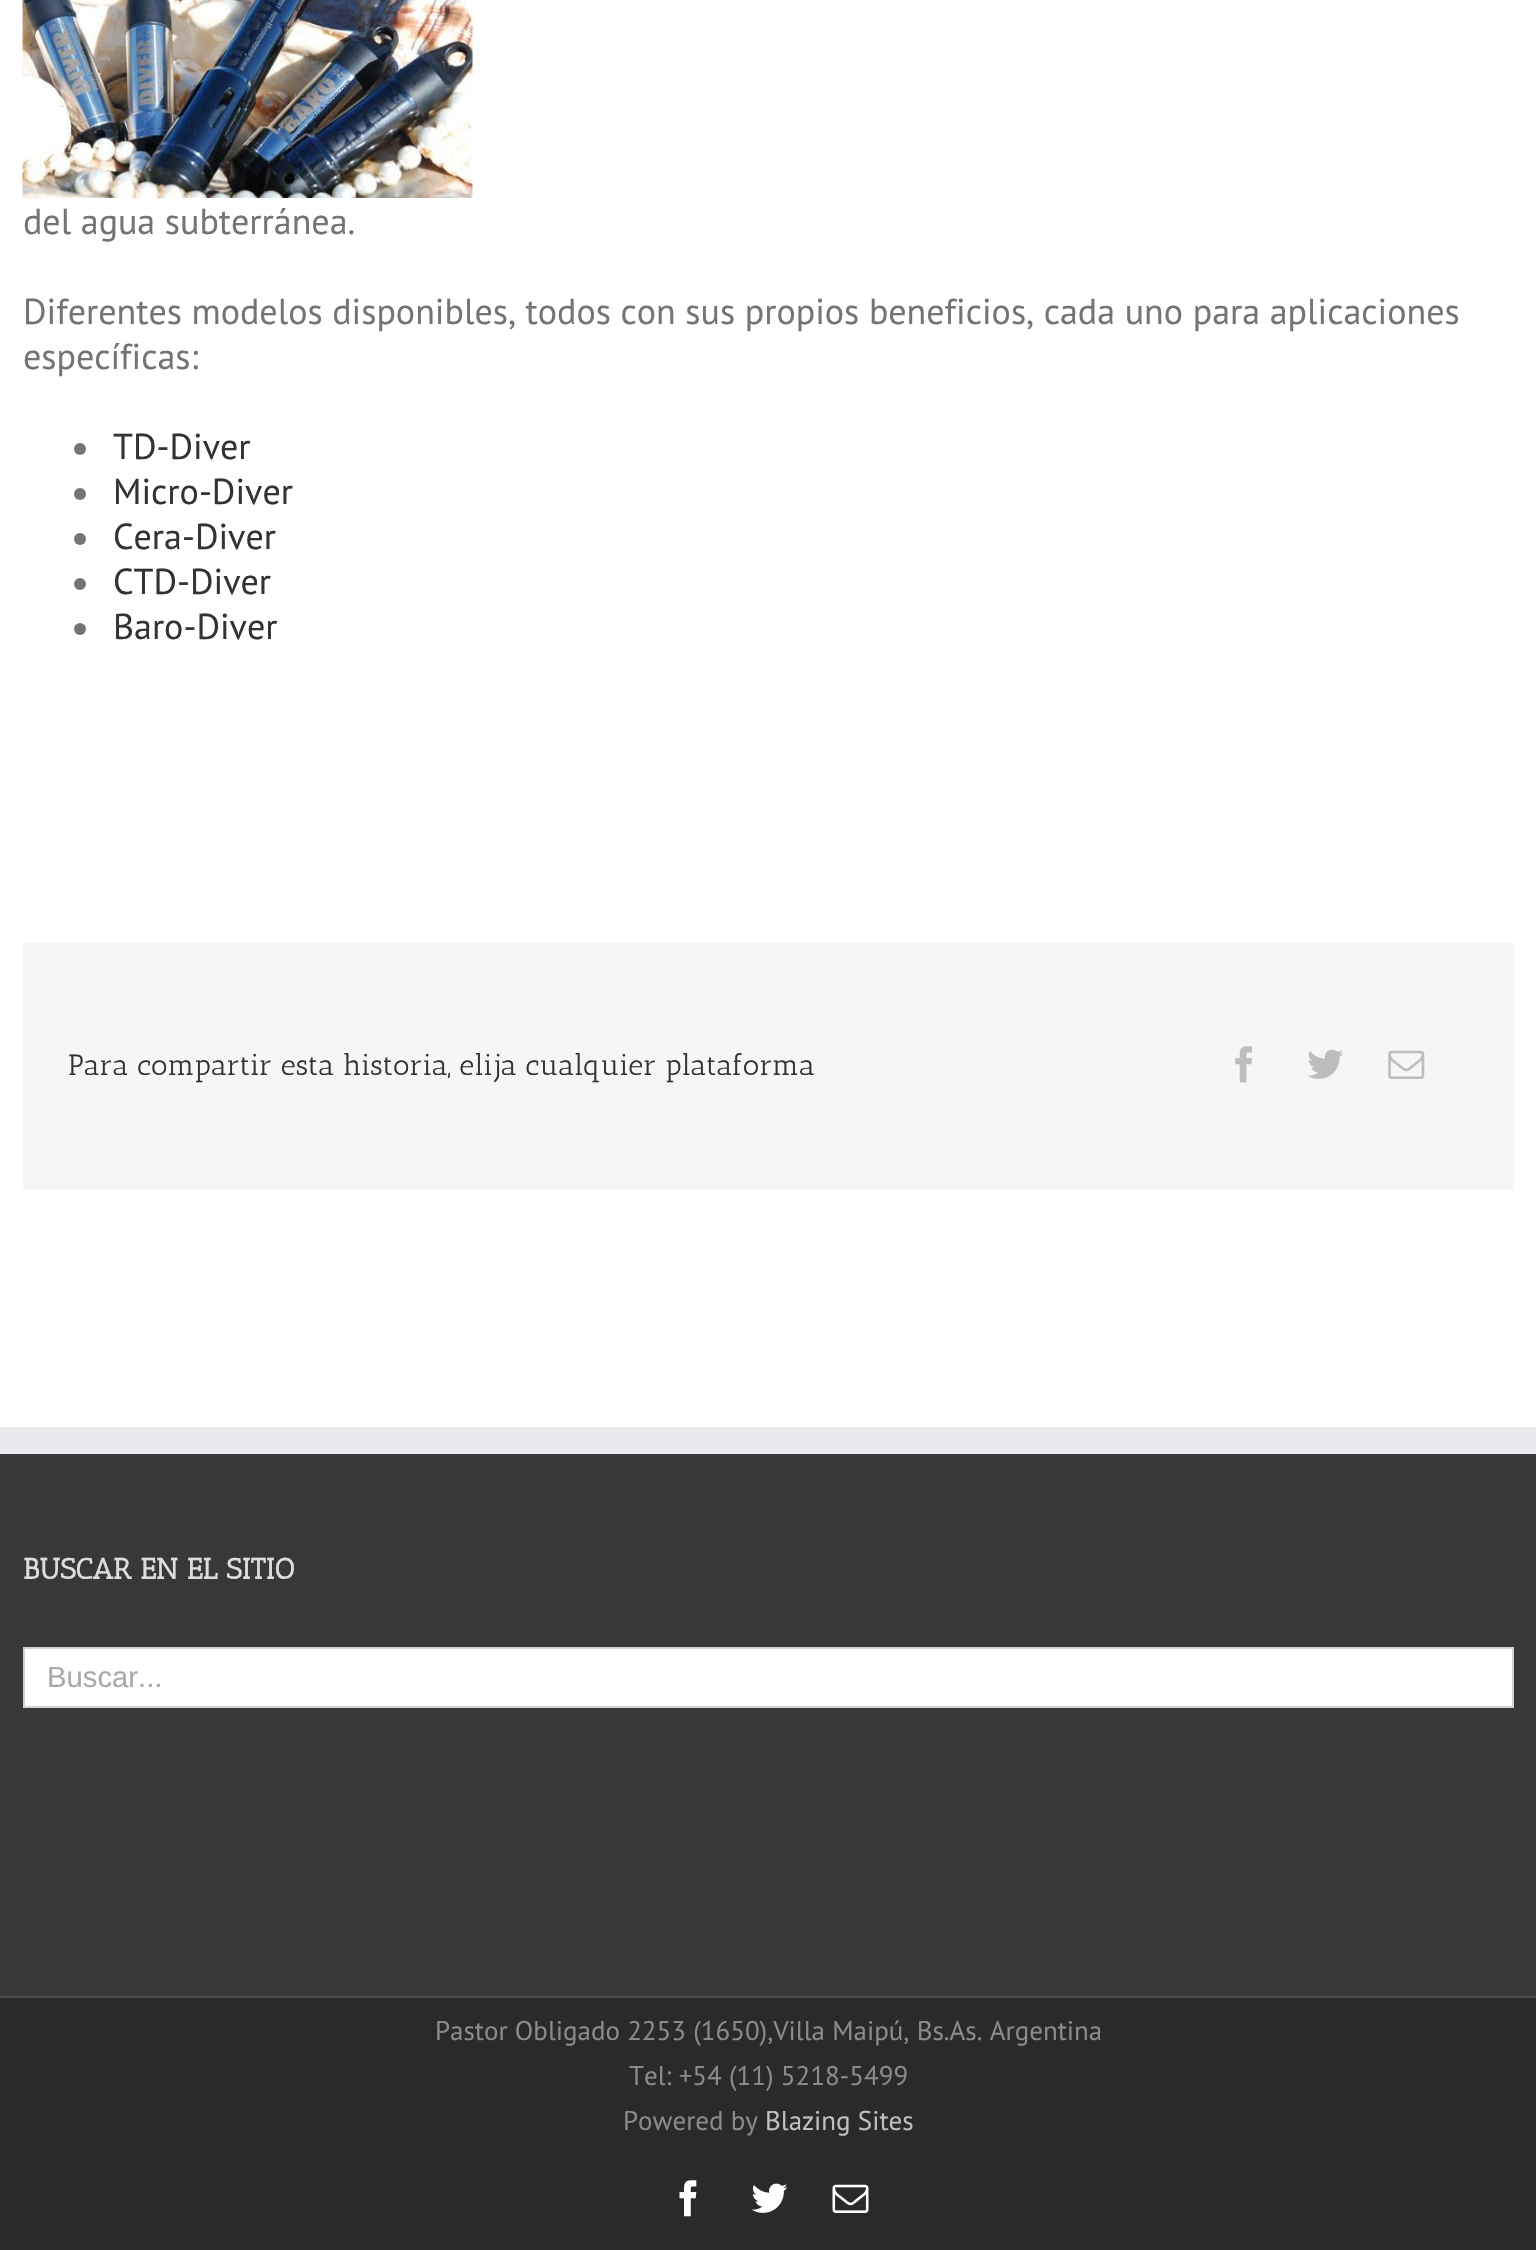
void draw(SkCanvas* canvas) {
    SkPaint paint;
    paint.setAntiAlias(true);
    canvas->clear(0xFFFFFFFF);
    canvas->drawImageRect(SkImages::DeferredFromEncodedData(SkData::MakeFromFileName("img1.png")), SkRect::MakeXYWH(22, 0, 451, 198), SkSamplingOptions());
    SkFont font1(fontMgr->matchFamilyStyle("PT Sans", SkFontStyle::Normal()), 36);
    font1.setSubpixel(true);
    paint.setColor(0xFF747474);
    canvas->drawString("del agua subterránea.", 23, 234, font1, paint);
    canvas->drawString("Diferentes modelos disponibles, todos con sus propios beneficios, cada uno para aplicaciones", 23, 324, font1, paint);
    canvas->drawString("específicas:", 23, 369, font1, paint);
    canvas->drawCircle(80, 449, 6, paint);
    paint.setColor(0xFF333333);
    canvas->drawString("TD-Diver", 113, 459, font1, paint);
    paint.setColor(0xFF747474);
    canvas->drawCircle(80, 494, 6, paint);
    paint.setColor(0xFF333333);
    canvas->drawString("Micro-Diver", 113, 504, font1, paint);
    paint.setColor(0xFF747474);
    canvas->drawCircle(80, 539, 6, paint);
    paint.setColor(0xFF333333);
    canvas->drawString("Cera-Diver", 113, 549, font1, paint);
    paint.setColor(0xFF747474);
    canvas->drawCircle(80, 584, 6, paint);
    paint.setColor(0xFF333333);
    canvas->drawString("CTD-Diver", 113, 594, font1, paint);
    paint.setColor(0xFF747474);
    canvas->drawCircle(80, 629, 6, paint);
    paint.setColor(0xFF333333);
    canvas->drawString("Baro-Diver", 113, 639, font1, paint);
    paint.setColor(0xFFF6F6F6);
    canvas->drawRect(SkRect::MakeXYWH(23, 943, 1491, 247), paint);
    SkFont font2(fontMgr->matchFamilyStyle("Antic Slab", SkFontStyle::Normal()), 29.25f);
    font2.setSubpixel(true);
    paint.setColor(0xFF333333);
    canvas->drawString("Para compartir esta historia, elija cualquier plataforma", 68, 1075, font2, paint);
    canvas->drawImageRect(SkImages::DeferredFromEncodedData(SkData::MakeFromFileName("img2.png")), SkRect::MakeXYWH(1235, 1046, 17, 37), SkSamplingOptions());
    canvas->drawImageRect(SkImages::DeferredFromEncodedData(SkData::MakeFromFileName("img3.png")), SkRect::MakeXYWH(1307, 1049, 36, 30), SkSamplingOptions());
    canvas->drawImageRect(SkImages::DeferredFromEncodedData(SkData::MakeFromFileName("img4.png")), SkRect::MakeXYWH(1388, 1050, 37, 29), SkSamplingOptions());
    paint.setColor(0xFF363839);
    canvas->drawRect(SkRect::MakeXYWH(0, 1454, 1536, 542), paint);
    paint.setColor(0xFFE9EAEE);
    canvas->drawRect(SkRect::MakeXYWH(0, 1427, 1536, 27), paint);
    SkFont font3(fontMgr->matchFamilyStyle("Antic Slab", SkFontStyle::Bold()), 29.25f);
    font3.setSubpixel(true);
    paint.setColor(0xFFDDDDDD);
    canvas->drawString("BUSCAR EN EL SITIO", 23, 1579, font3, paint);
    paint.setColor(0xFFFFFFFF);
    canvas->drawRect(SkRect::MakeXYWH(24, 1648, 1489, 59), paint);
    paint.setStyle(SkPaint::kStroke_Style);
    paint.setStrokeWidth(2);
    paint.setColor(0xFFD2D2D2);
    canvas->drawRect(SkRect::MakeXYWH(24, 1648, 1489, 59), paint);
    SkFont font4(fontMgr->matchFamilyStyle("Liberation Sans", SkFontStyle::Normal()), 29.25f);
    font4.setSubpixel(true);
    paint.setStyle(SkPaint::kFill_Style);
    paint.setColor(0xFFAAA9A9);
    canvas->drawString("Buscar...", 47, 1687, font4, paint);
    paint.setColor(0xFF282A2B);
    canvas->drawRect(SkRect::MakeXYWH(0, 1998, 1536, 252), paint);
    paint.setColor(0xFF4B4C4D);
    canvas->drawRect(SkRect::MakeXYWH(0, 1996, 1536, 2), paint);
    SkFont font5(fontMgr->matchFamilyStyle("PT Sans", SkFontStyle::Normal()), 27);
    font5.setSubpixel(true);
    paint.setColor(0xFF8C8989);
    canvas->drawString("Pastor Obligado 2253 (1650),Villa Maipú, Bs.As. Argentina", 435, 2040, font5, paint);
    canvas->drawString("Tel: +54 (11) 5218-5499", 629, 2085, font5, paint);
    canvas->drawString("Powered by", 623, 2130, font5, paint);
    paint.setColor(0xFFBFBFBF);
    canvas->drawString("Blazing Sites", 765, 2130, font5, paint);
    canvas->drawImageRect(SkImages::DeferredFromEncodedData(SkData::MakeFromFileName("img5.png")), SkRect::MakeXYWH(679, 2180, 18, 37), SkSamplingOptions());
    canvas->drawImageRect(SkImages::DeferredFromEncodedData(SkData::MakeFromFileName("img6.png")), SkRect::MakeXYWH(751, 2183, 37, 30), SkSamplingOptions());
    canvas->drawImageRect(SkImages::DeferredFromEncodedData(SkData::MakeFromFileName("img7.png")), SkRect::MakeXYWH(832, 2184, 37, 29), SkSamplingOptions());
}
